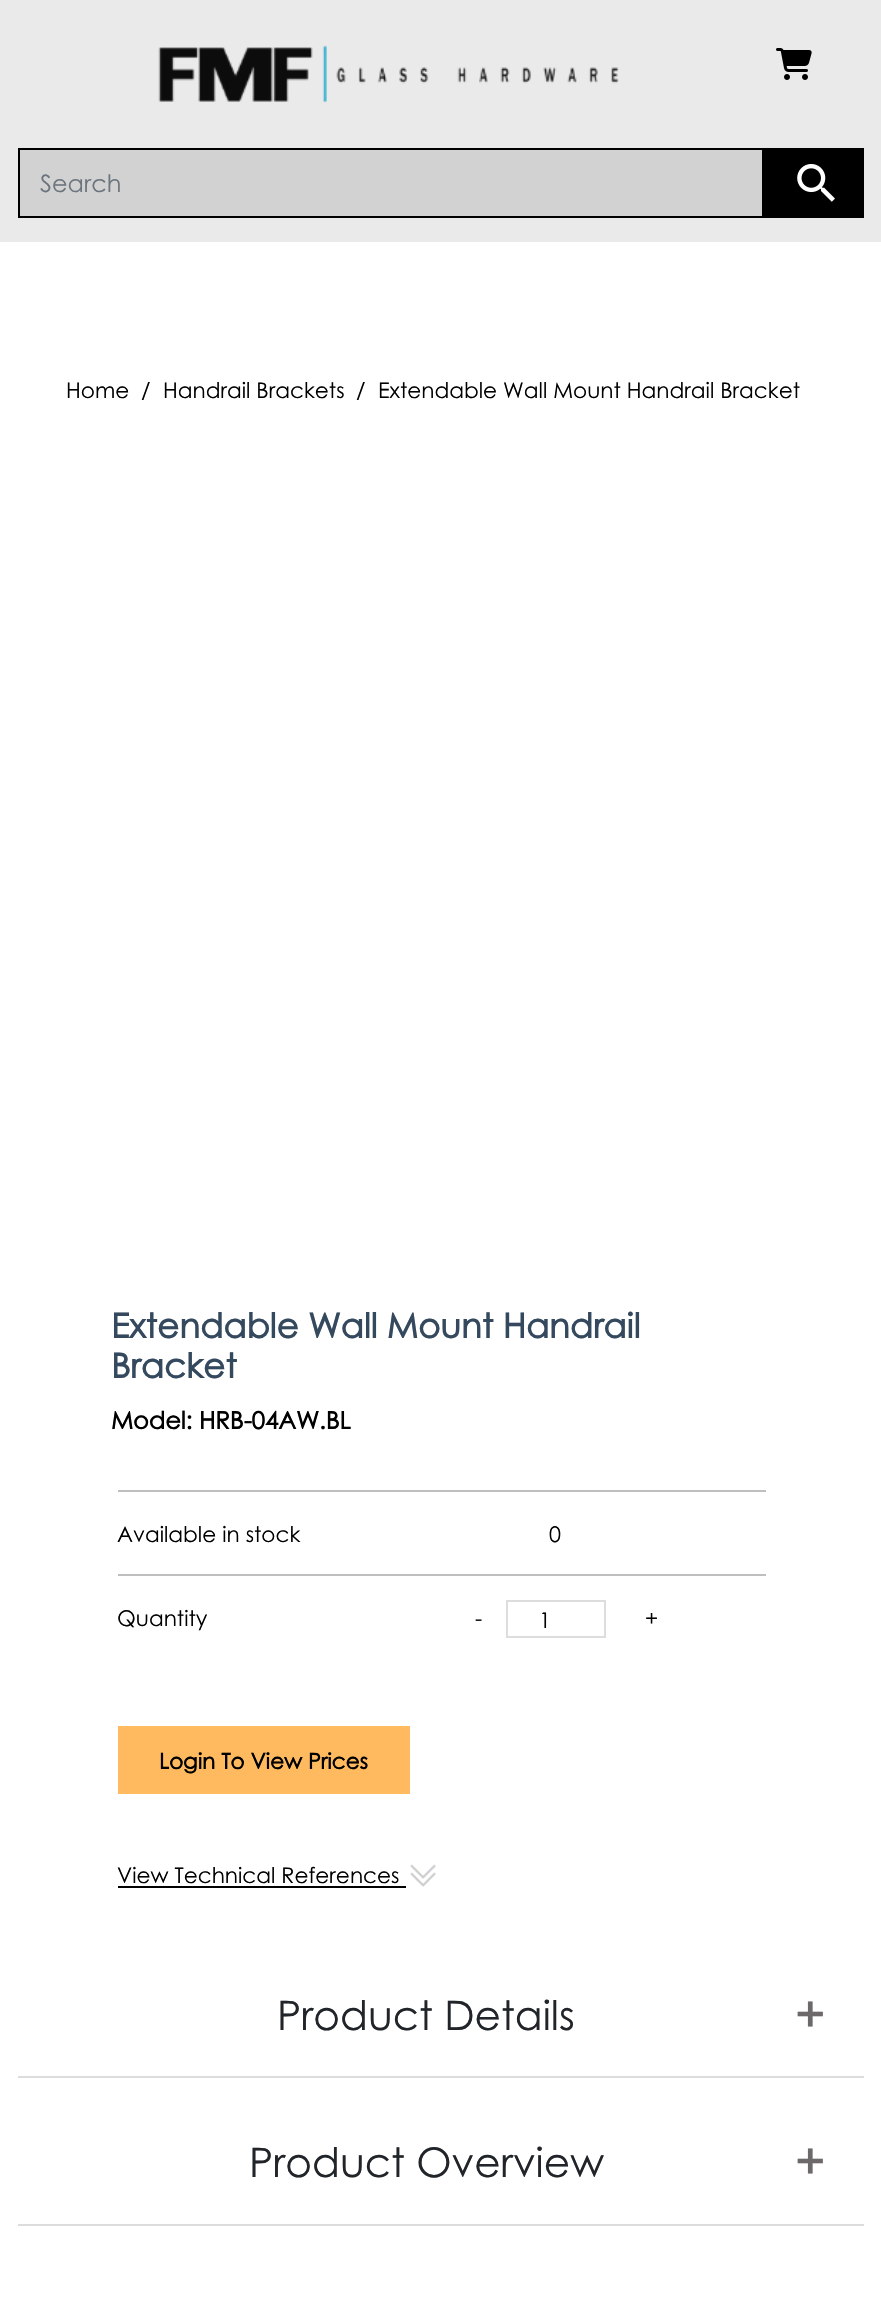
void draw(SkCanvas* canvas) {
    SkPaint paint;
    paint.setAntiAlias(true);
    canvas->clear(0xFFFFFFFF);
    paint.setColor(0xFFEAEAEA);
    canvas->drawRect(SkRect::MakeXYWH(0, 0, 881, 242), paint);
    canvas->drawImageRect(SkImages::DeferredFromEncodedData(SkData::MakeFromFileName("img1.png")), SkRect::MakeXYWH(158, 45, 461, 58), SkSamplingOptions());
    canvas->drawImageRect(SkImages::DeferredFromEncodedData(SkData::MakeFromFileName("img2.png")), SkRect::MakeXYWH(776, 48, 36, 32), SkSamplingOptions());
    paint.setColor(0xFFD2D2D2);
    canvas->drawRect(SkRect::MakeXYWH(20, 150, 742, 66), paint);
    paint.setStyle(SkPaint::kStroke_Style);
    paint.setStrokeWidth(2);
    paint.setColor(0xFF000000);
    canvas->drawRect(SkRect::MakeXYWH(19, 149, 844, 68), paint);
    SkFont font1(fontMgr->matchFamilyStyle("Century Gothic", SkFontStyle::Normal()), 24);
    font1.setSubpixel(true);
    paint.setStyle(SkPaint::kFill_Style);
    paint.setColor(0xFF6C757D);
    canvas->drawString("Search", 40, 192, font1, paint);
    paint.setColor(0xFF000000);
    canvas->drawRect(SkRect::MakeXYWH(762, 150, 100, 66), paint);
    canvas->drawImageRect(SkImages::DeferredFromEncodedData(SkData::MakeFromFileName("img3.png")), SkRect::MakeXYWH(797, 164, 38, 38), SkSamplingOptions());
    SkFont font2(fontMgr->matchFamilyStyle("Century Gothic", SkFontStyle::Normal()), 21.6f);
    font2.setSubpixel(true);
    canvas->drawString("Home", 66, 398, font2, paint);
    canvas->drawString("/", 141, 398, font2, paint);
    canvas->drawString("Handrail Brackets", 163, 398, font2, paint);
    canvas->drawString("/", 356, 398, font2, paint);
    canvas->drawString("Extendable Wall Mount Handrail Bracket", 378, 398, font2, paint);
    SkFont font3(fontMgr->matchFamilyStyle("Century Gothic", SkFontStyle::Bold()), 34);
    font3.setSubpixel(true);
    paint.setColor(0xFF34495E);
    canvas->drawString("Extendable Wall Mount Handrail", 111, 1338, font3, paint);
    canvas->drawString("Bracket", 111, 1378, font3, paint);
    SkFont font4(fontMgr->matchFamilyStyle("Century Gothic", SkFontStyle::Bold()), 24);
    font4.setSubpixel(true);
    paint.setColor(0xFF000000);
    canvas->drawString("Model: HRB-04AW.BL", 111, 1429, font4, paint);
    paint.setColor(0xFFBFBFBF);
    canvas->drawRect(SkRect::MakeXYWH(118, 1490, 648, 2), paint);
    paint.setColor(0xFF000000);
    canvas->drawString("Available in stock", 117, 1542, font2, paint);
    canvas->drawString("0", 549, 1542, font2, paint);
    paint.setColor(0xFFBFBFBF);
    canvas->drawRect(SkRect::MakeXYWH(118, 1574, 648, 2), paint);
    paint.setColor(0xFF000000);
    canvas->drawString("Quantity", 117, 1626, font2, paint);
    canvas->drawString("-", 475, 1626, font2, paint);
    paint.setStyle(SkPaint::kStroke_Style);
    paint.setColor(0xFFDDDDDD);
    canvas->drawRect(SkRect::MakeXYWH(507, 1601, 98, 36), paint);
    paint.setStyle(SkPaint::kFill_Style);
    paint.setColor(0xFF000000);
    canvas->drawString("1", 539, 1628, font2, paint);
    canvas->drawString("+", 645, 1626, font2, paint);
    paint.setColor(0xFFFFBA60);
    canvas->drawRect(SkRect::MakeXYWH(118, 1726, 292, 68), paint);
    SkFont font5(fontMgr->matchFamilyStyle("Century Gothic", SkFontStyle::Bold()), 21.6f);
    font5.setSubpixel(true);
    paint.setColor(0xFF000000);
    canvas->drawString("Login To View Prices", 159, 1769, font5, paint);
    canvas->drawString("View Technical References", 117, 1883, font2, paint);
    canvas->drawRect(SkRect::MakeXYWH(118, 1886, 288, 2), paint);
    canvas->drawImageRect(SkImages::DeferredFromEncodedData(SkData::MakeFromFileName("img4.png")), SkRect::MakeXYWH(410, 1864, 26, 23), SkSamplingOptions());
    paint.setColor(0xFFDDDDDD);
    canvas->drawRect(SkRect::MakeXYWH(18, 2076, 846, 2), paint);
    SkFont font6(fontMgr->matchFamilyStyle("Century Gothic", SkFontStyle::Normal()), 40.75f);
    font6.setSubpixel(true);
    paint.setColor(0xFF212529);
    canvas->drawString("Product Details", 277, 2030, font6, paint);
    SkFont font7(fontMgr->matchFamilyStyle("Century Gothic", SkFontStyle::Bold()), 48);
    font7.setSubpixel(true);
    paint.setColor(0xFF6D6969);
    canvas->drawString("+", 795, 2032, font7, paint);
    paint.setColor(0xFFDDDDDD);
    canvas->drawRect(SkRect::MakeXYWH(18, 2224, 846, 2), paint);
    paint.setColor(0xFF212529);
    canvas->drawString("Product Overview", 249, 2177, font6, paint);
    paint.setColor(0xFF6D6969);
    canvas->drawString("+", 795, 2179, font7, paint);
}
